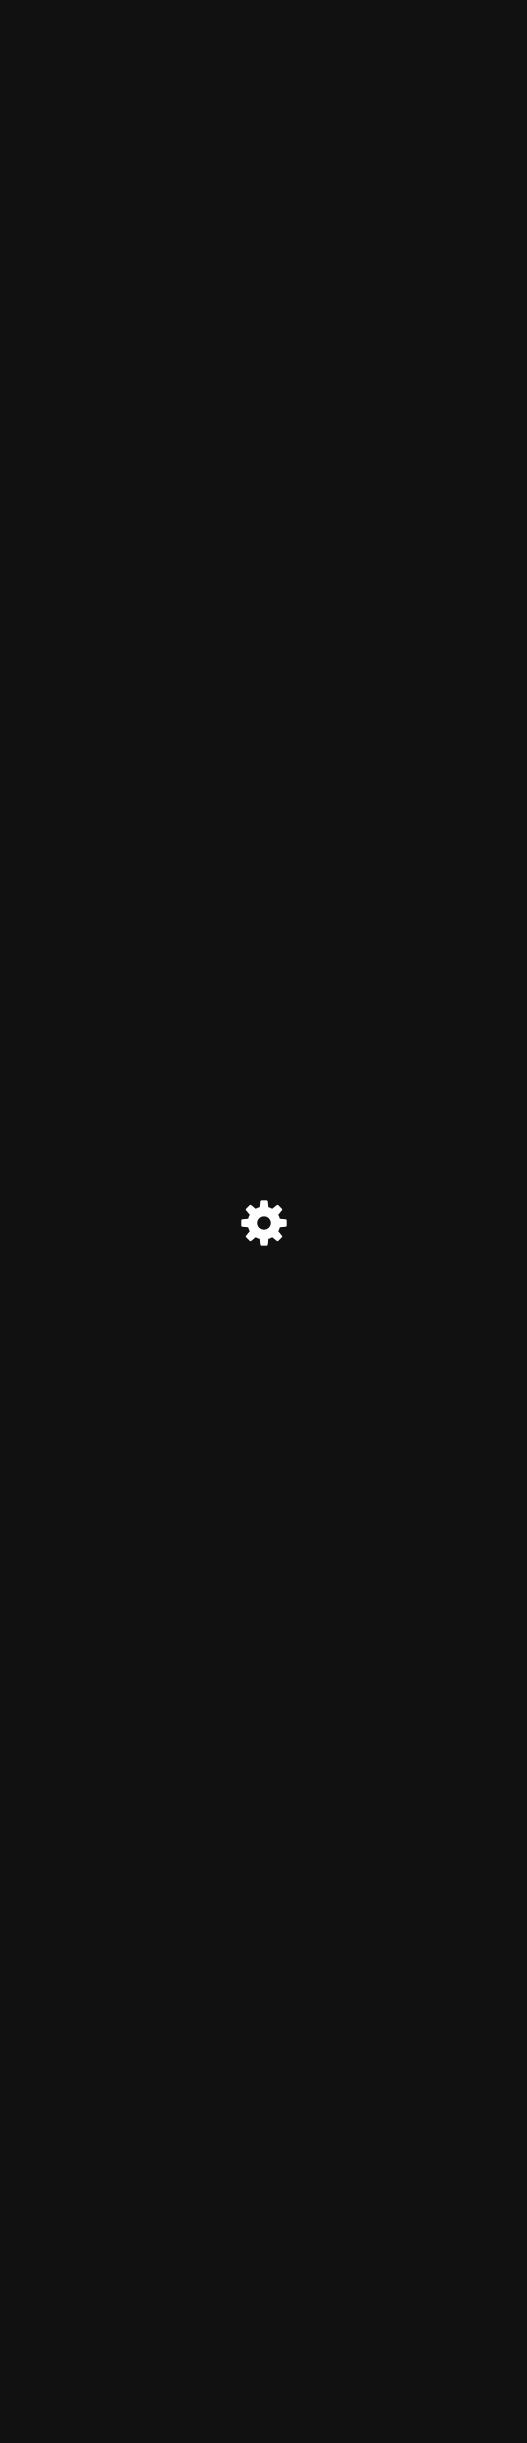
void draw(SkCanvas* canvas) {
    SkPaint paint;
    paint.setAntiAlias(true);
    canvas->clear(0xFF111111);
    canvas->drawImageRect(SkImages::DeferredFromEncodedData(SkData::MakeFromFileName("img1.png")), SkRect::MakeXYWH(241, 1200, 46, 46), SkSamplingOptions());
}
